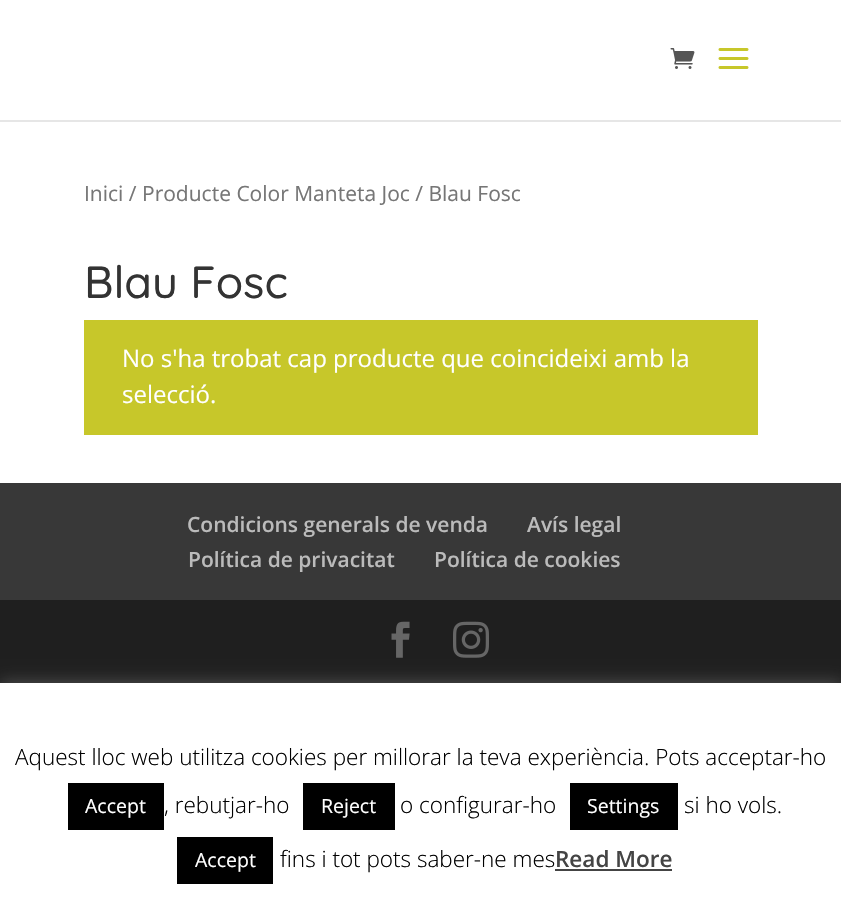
void draw(SkCanvas* canvas) {
    SkPaint paint;
    paint.setAntiAlias(true);
    canvas->clear(0xFFFFFFFF);
    paint.setColor(0xFFE6E6E6);
    canvas->drawPath(SkPathBuilder().moveTo(0, 120).lineTo(0, 122).lineTo(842, 122).lineTo(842, 2).lineTo(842, 120).close().detach(), paint);
    canvas->drawImageRect(SkImages::DeferredFromEncodedData(SkData::MakeFromFileName("img1.png")), SkRect::MakeXYWH(670, 48, 25, 21), SkSamplingOptions());
    canvas->drawImageRect(SkImages::DeferredFromEncodedData(SkData::MakeFromFileName("img2.png")), SkRect::MakeXYWH(718, 48, 31, 21), SkSamplingOptions());
    SkFont font1(fontMgr->matchFamilyStyle("Open Sans", SkFontStyle::Normal()), 21);
    font1.setSubpixel(true);
    paint.setColor(0xFF767676);
    canvas->drawString("Inici / Producte Color Manteta Joc / Blau Fosc", 84, 201, font1, paint);
    SkFont font2(fontMgr->matchFamilyStyle("Quicksand", SkFontStyle(500, SkFontStyle::kNormal_Width, SkFontStyle::kUpright_Slant)), 45);
    font2.setSubpixel(true);
    paint.setColor(0xFF333333);
    canvas->drawString("Blau Fosc", 84, 298, font2, paint);
    paint.setColor(0xFFC7C72A);
    canvas->drawRect(SkRect::MakeXYWH(84, 320, 674, 115), paint);
    SkFont font3(fontMgr->matchFamilyStyle("Open Sans", SkFontStyle::Normal()), 24);
    font3.setSubpixel(true);
    paint.setColor(0xFFFFFFFF);
    canvas->drawString("No s'ha trobat cap producte que coincideixi amb la", 122, 367, font3, paint);
    canvas->drawString("selecció.", 122, 403, font3, paint);
    paint.setColor(0xFF383838);
    canvas->drawRect(SkRect::MakeXYWH(0, 483, 841, 117), paint);
    SkFont font4(fontMgr->matchFamilyStyle("Open Sans", SkFontStyle(600, SkFontStyle::kNormal_Width, SkFontStyle::kUpright_Slant)), 21);
    font4.setSubpixel(true);
    paint.setColor(0xFFBBBBBB);
    canvas->drawString("Condicions generals de venda", 187, 532, font4, paint);
    canvas->drawString("Avís legal", 527, 532, font4, paint);
    canvas->drawString("Política de privacitat", 188, 567, font4, paint);
    canvas->drawString("Política de cookies", 434, 567, font4, paint);
    paint.setColor(0xFF1F1F1F);
    canvas->drawRect(SkRect::MakeXYWH(0, 600, 841, 83), paint);
    canvas->drawImageRect(SkImages::DeferredFromEncodedData(SkData::MakeFromFileName("img3.png")), SkRect::MakeXYWH(391, 621, 19, 37), SkSamplingOptions());
    canvas->drawImageRect(SkImages::DeferredFromEncodedData(SkData::MakeFromFileName("img4.png")), SkRect::MakeXYWH(453, 621, 36, 37), SkSamplingOptions());
    paint.setColor(0x4DACABAB);
    paint.setMaskFilter(SkMaskFilter::MakeBlur(kNormal_SkBlurStyle, 7.5f));
    canvas->drawRect(SkRect::MakeXYWH(0, 681, 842, 219), paint);
    paint.setMaskFilter(nullptr);
    paint.setColor(0xFFFFFFFF);
    canvas->drawRect(SkRect::MakeXYWH(0, 683, 841, 218), paint);
    SkFont font5(fontMgr->matchFamilyStyle("Open Sans", SkFontStyle(300, SkFontStyle::kNormal_Width, SkFontStyle::kUpright_Slant)), 22.5f);
    font5.setSubpixel(true);
    paint.setColor(0xFF000000);
    canvas->drawString("Aquest lloc web utilitza cookies per millorar la teva experiència. Pots acceptar-ho", 15, 765, font5, paint);
    canvas->drawRect(SkRect::MakeXYWH(68, 783, 96, 47), paint);
    SkFont font6(fontMgr->matchFamilyStyle("Open Sans", SkFontStyle::Normal()), 19.5f);
    font6.setSubpixel(true);
    paint.setColor(0xFFFFFFFF);
    canvas->drawString("Accept", 85, 813, font6, paint);
    paint.setColor(0xFF000000);
    canvas->drawString(", rebutjar-ho", 164, 813, font5, paint);
    canvas->drawRect(SkRect::MakeXYWH(303, 783, 92, 47), paint);
    paint.setColor(0xFFFFFFFF);
    canvas->drawString("Reject", 321, 813, font6, paint);
    paint.setColor(0xFF000000);
    canvas->drawString("o configurar-ho", 400, 813, font5, paint);
    canvas->drawRect(SkRect::MakeXYWH(570, 783, 108, 47), paint);
    paint.setColor(0xFFFFFFFF);
    canvas->drawString("Settings", 587, 813, font6, paint);
    paint.setColor(0xFF000000);
    canvas->drawString("si ho vols.", 684, 813, font5, paint);
    canvas->drawRect(SkRect::MakeXYWH(177, 837, 96, 47), paint);
    paint.setColor(0xFFFFFFFF);
    canvas->drawString("Accept", 195, 867, font6, paint);
    paint.setColor(0xFF000000);
    canvas->drawString("fins i tot pots saber-ne mes", 280, 867, font5, paint);
    SkFont font7(fontMgr->matchFamilyStyle("Open Sans", SkFontStyle(600, SkFontStyle::kNormal_Width, SkFontStyle::kUpright_Slant)), 22.5f);
    font7.setSubpixel(true);
    paint.setColor(0xFF444444);
    canvas->drawString("Read More", 555, 867, font7, paint);
    canvas->drawRect(SkRect::MakeXYWH(555, 869, 117, 2), paint);
}
